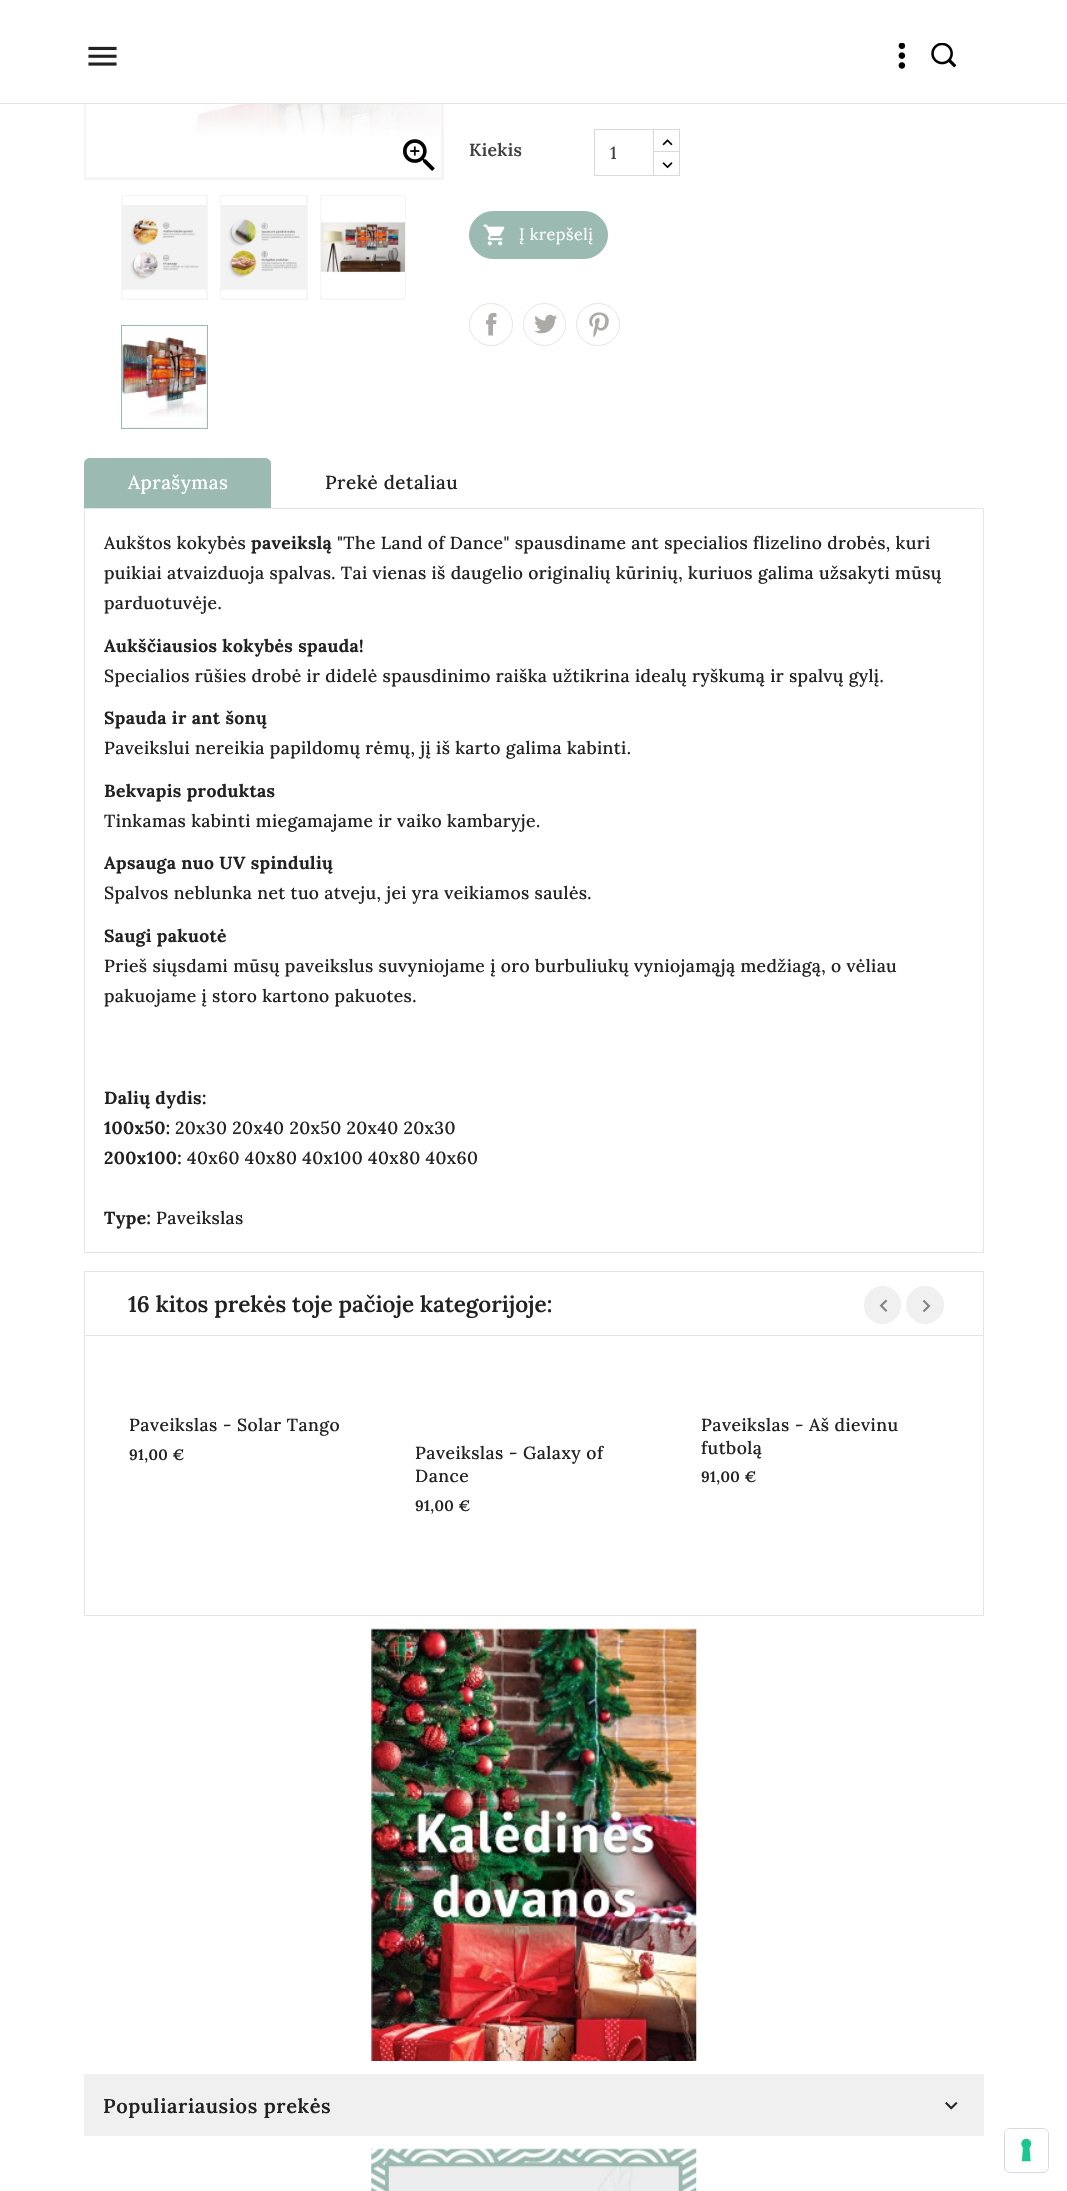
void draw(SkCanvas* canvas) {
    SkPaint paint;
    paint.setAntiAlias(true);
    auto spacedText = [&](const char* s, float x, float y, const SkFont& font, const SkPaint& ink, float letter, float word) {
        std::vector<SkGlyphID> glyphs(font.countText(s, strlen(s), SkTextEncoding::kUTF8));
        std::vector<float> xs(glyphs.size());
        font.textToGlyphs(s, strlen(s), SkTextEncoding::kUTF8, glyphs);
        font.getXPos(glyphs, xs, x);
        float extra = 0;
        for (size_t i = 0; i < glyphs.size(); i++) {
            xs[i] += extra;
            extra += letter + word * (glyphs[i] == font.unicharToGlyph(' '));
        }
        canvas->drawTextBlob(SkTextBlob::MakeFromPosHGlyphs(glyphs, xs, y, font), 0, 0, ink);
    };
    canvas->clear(0xFFFFFFFF);
    paint.setColor(0xFFE5E5E5);
    canvas->drawRect(SkRect::MakeXYWH(0, 103, 1067, 1), paint);
    canvas->drawImageRect(SkImages::DeferredFromEncodedData(SkData::MakeFromFileName("img1.png")), SkRect::MakeXYWH(88, 46, 29, 20), SkSamplingOptions());
    canvas->drawImageRect(SkImages::DeferredFromEncodedData(SkData::MakeFromFileName("img2.png")), SkRect::MakeXYWH(898, 43, 8, 26), SkSamplingOptions());
    canvas->drawImageRect(SkImages::DeferredFromEncodedData(SkData::MakeFromFileName("img3.png")), SkRect::MakeXYWH(931, 43, 25, 25), SkSamplingOptions());
    paint.setColor(0xFFF5F5F5);
    canvas->drawRect(SkRect::MakeXYWH(84, 104, 360, 76), paint);
    canvas->drawImageRect(SkImages::DeferredFromEncodedData(SkData::MakeFromFileName("img4.png")), SkRect::MakeXYWH(86, 104, 355, 73), SkSamplingOptions());
    canvas->drawImageRect(SkImages::DeferredFromEncodedData(SkData::MakeFromFileName("img5.png")), SkRect::MakeXYWH(403, 139, 32, 32), SkSamplingOptions());
    canvas->drawRect(SkRect::MakeXYWH(121, 195, 87, 105), paint);
    canvas->drawImageRect(SkImages::DeferredFromEncodedData(SkData::MakeFromFileName("img6.png")), SkRect::MakeXYWH(122, 196, 84, 103), SkSamplingOptions());
    canvas->drawRect(SkRect::MakeXYWH(220, 195, 88, 105), paint);
    canvas->drawImageRect(SkImages::DeferredFromEncodedData(SkData::MakeFromFileName("img7.png")), SkRect::MakeXYWH(221, 196, 85, 103), SkSamplingOptions());
    canvas->drawRect(SkRect::MakeXYWH(320, 195, 86, 105), paint);
    canvas->drawImageRect(SkImages::DeferredFromEncodedData(SkData::MakeFromFileName("img8.png")), SkRect::MakeXYWH(321, 196, 84, 103), SkSamplingOptions());
    canvas->drawRect(SkRect::MakeXYWH(121.5f, 325.5f, 86, 103), paint);
    paint.setStyle(SkPaint::kStroke_Style);
    paint.setStrokeWidth(1);
    paint.setColor(0xFF9BBAB1);
    canvas->drawRect(SkRect::MakeXYWH(121.5f, 325.5f, 86, 103), paint);
    canvas->drawImageRect(SkImages::DeferredFromEncodedData(SkData::MakeFromFileName("img9.png")), SkRect::MakeXYWH(122, 326, 85, 101), SkSamplingOptions());
    SkFont font1(fontMgr->matchFamilyStyle("Lora", SkFontStyle(600, SkFontStyle::kNormal_Width, SkFontStyle::kUpright_Slant)), 17.5f);
    font1.setSubpixel(true);
    paint.setStyle(SkPaint::kFill_Style);
    paint.setColor(0xFF414141);
    spacedText("Kiekis", 469, 156, font1, paint, 0.38f, 0);
    paint.setStyle(SkPaint::kStroke_Style);
    paint.setColor(0xFFD9D9D9);
    canvas->drawRect(SkRect::MakeXYWH(653.5f, 129.5f, 26, 24), paint);
    paint.setStyle(SkPaint::kFill_Style);
    paint.setColor(0xFFFFFFFF);
    canvas->drawRect(SkRect::MakeXYWH(654, 153, 25, 1), paint);
    paint.setStyle(SkPaint::kStroke_Style);
    paint.setColor(0xFFD9D9D9);
    canvas->drawRect(SkRect::MakeXYWH(653.5f, 151.5f, 26, 24), paint);
    canvas->drawRect(SkRect::MakeXYWH(594.5f, 129.5f, 59, 46), paint);
    SkFont font2(fontMgr->matchFamilyStyle("Lora", SkFontStyle(500, SkFontStyle::kNormal_Width, SkFontStyle::kUpright_Slant)), 17.5f);
    font2.setSubpixel(true);
    paint.setStyle(SkPaint::kFill_Style);
    paint.setColor(0xFF414141);
    canvas->drawString("1", 610, 159, font2, paint);
    canvas->drawImageRect(SkImages::DeferredFromEncodedData(SkData::MakeFromFileName("img10.png")), SkRect::MakeXYWH(662, 139, 11, 7), SkSamplingOptions());
    canvas->drawImageRect(SkImages::DeferredFromEncodedData(SkData::MakeFromFileName("img11.png")), SkRect::MakeXYWH(662, 162, 11, 7), SkSamplingOptions());
    paint.setColor(0xFF9BBAB1);
    canvas->drawRoundRect(SkRect::MakeXYWH(469.5f, 211.5f, 138, 47), 23.5f, 23.5f, paint);
    paint.setStyle(SkPaint::kStroke_Style);
    canvas->drawRoundRect(SkRect::MakeXYWH(469.5f, 211.5f, 138, 47), 23.5f, 23.5f, paint);
    canvas->drawImageRect(SkImages::DeferredFromEncodedData(SkData::MakeFromFileName("img12.png")), SkRect::MakeXYWH(483, 224, 22, 22), SkSamplingOptions());
    SkFont font3(fontMgr->matchFamilyStyle("Lora", SkFontStyle::Normal()), 16.25f);
    font3.setSubpixel(true);
    paint.setStyle(SkPaint::kFill_Style);
    paint.setColor(0xFFFFFFFF);
    spacedText("Į krepšelį", 519, 240, font3, paint, 0.5f, 0);
    canvas->drawImageRect(SkImages::DeferredFromEncodedData(SkData::MakeFromFileName("img13.png")), SkRect::MakeXYWH(485, 313, 12, 23), SkSamplingOptions());
    paint.setStyle(SkPaint::kStroke_Style);
    paint.setColor(0xFFE5E5E5);
    canvas->drawRoundRect(SkRect::MakeXYWH(469.5f, 303.5f, 43, 42), 21, 21, paint);
    canvas->drawImageRect(SkImages::DeferredFromEncodedData(SkData::MakeFromFileName("img14.png")), SkRect::MakeXYWH(534, 314, 23, 20), SkSamplingOptions());
    canvas->drawCircle(544.5f, 324.5f, 21, paint);
    canvas->drawImageRect(SkImages::DeferredFromEncodedData(SkData::MakeFromFileName("img15.png")), SkRect::MakeXYWH(589, 312, 20, 26), SkSamplingOptions());
    canvas->drawRoundRect(SkRect::MakeXYWH(576.5f, 303.5f, 43, 42), 21, 21, paint);
    paint.setStyle(SkPaint::kFill_Style);
    paint.setColor(0xFF9BBAB1);
    canvas->drawPath(SkPathBuilder().moveTo(90, 458).lineTo(265, 458).cubicTo(268.5f, 458, 271, 460.5f, 271, 464).lineTo(271, 508).lineTo(84, 508).lineTo(84, 464).cubicTo(84, 460.5f, 86.5f, 458, 90, 458).close().detach(), paint);
    SkFont font4(fontMgr->matchFamilyStyle("Lora", SkFontStyle(500, SkFontStyle::kNormal_Width, SkFontStyle::kUpright_Slant)), 18.75f);
    font4.setSubpixel(true);
    paint.setColor(0xFFFFFFFF);
    spacedText("Aprašymas", 128, 489, font4, paint, 0.5f, 0);
    paint.setColor(0xFF222222);
    spacedText("Prekė detaliau", 325, 489, font4, paint, 0.5f, 0);
    paint.setStyle(SkPaint::kStroke_Style);
    paint.setColor(0xFFE5E5E5);
    canvas->drawRect(SkRect::MakeXYWH(84.5f, 508.5f, 899, 744), paint);
    paint.setStyle(SkPaint::kFill_Style);
    paint.setColor(0xFF222222);
    spacedText("Aukštos kokybės", 104, 549, font2, paint, 0.38f, 0);
    SkFont font5(fontMgr->matchFamilyStyle("Lora", SkFontStyle::Bold()), 17.5f);
    font5.setSubpixel(true);
    spacedText("paveikslą", 251, 549, font5, paint, 0.38f, 0);
    spacedText("\"The Land of Dance\" spausdiname ant specialios flizelino drobės, kuri", 337, 549, font2, paint, 0.38f, 0);
    spacedText("puikiai atvaizduoja spalvas. Tai vienas iš daugelio originalių kūrinių, kuriuos galima užsakyti mūsų", 104, 579, font2, paint, 0.38f, 0);
    spacedText("parduotuvėje.", 104, 609, font2, paint, 0.38f, 0);
    spacedText("Aukščiausios kokybės spauda!", 104, 652, font5, paint, 0.38f, 0);
    spacedText("Specialios rūšies drobė ir didelė spausdinimo raiška užtikrina idealų ryškumą ir spalvų gylį.", 104, 682, font2, paint, 0.38f, 0);
    spacedText("Spauda ir ant šonų", 104, 724, font5, paint, 0.38f, 0);
    spacedText("Paveikslui nereikia papildomų rėmų, jį iš karto galima kabinti.", 104, 754, font2, paint, 0.38f, 0);
    spacedText("Bekvapis produktas", 104, 797, font5, paint, 0.38f, 0);
    spacedText("Tinkamas kabinti miegamajame ir vaiko kambaryje.", 104, 827, font2, paint, 0.38f, 0);
    spacedText("Apsauga nuo UV spindulių", 104, 869, font5, paint, 0.38f, 0);
    spacedText("Spalvos neblunka net tuo atveju, jei yra veikiamos saulės.", 104, 899, font2, paint, 0.38f, 0);
    spacedText("Saugi pakuotė", 104, 942, font5, paint, 0.38f, 0);
    spacedText("Prieš siųsdami mūsų paveikslus suvyniojame į oro burbuliukų vyniojamąją medžiagą, o vėliau", 104, 972, font2, paint, 0.38f, 0);
    spacedText("pakuojame į storo kartono pakuotes.", 104, 1002, font2, paint, 0.38f, 0);
    spacedText("Dalių dydis:", 104, 1104, font5, paint, 0.38f, 0);
    spacedText("100x50:", 104, 1134, font5, paint, 0.38f, 0);
    spacedText("20x30 20x40 20x50 20x40 20x30", 175, 1134, font2, paint, 0.38f, 0);
    spacedText("200x100:", 104, 1164, font5, paint, 0.38f, 0);
    spacedText("40x60 40x80 40x100 40x80 40x60", 187, 1164, font2, paint, 0.38f, 0);
    spacedText("Type:", 104, 1224, font5, paint, 0.38f, 0);
    spacedText("Paveikslas", 156, 1224, font2, paint, 0.38f, 0);
    paint.setColor(0xFFE5E5E5);
    canvas->drawRect(SkRect::MakeXYWH(84, 1271, 900, 1), paint);
    canvas->drawRect(SkRect::MakeXYWH(983, 1271, 1, 64), paint);
    canvas->drawRect(SkRect::MakeXYWH(84, 1271, 1, 64), paint);
    SkFont font6(fontMgr->matchFamilyStyle("Lora", SkFontStyle(600, SkFontStyle::kNormal_Width, SkFontStyle::kUpright_Slant)), 22.5f);
    font6.setSubpixel(true);
    paint.setColor(0xFF222222);
    canvas->drawString("16 kitos prekės toje pačioje kategorijoje:", 128, 1312, font6, paint);
    paint.setColor(0xFFF0F0F0);
    canvas->drawRoundRect(SkRect::MakeXYWH(864.5f, 1286.5f, 36, 37), 18, 18, paint);
    paint.setStyle(SkPaint::kStroke_Style);
    canvas->drawRoundRect(SkRect::MakeXYWH(864.5f, 1286.5f, 36, 37), 18, 18, paint);
    canvas->drawImageRect(SkImages::DeferredFromEncodedData(SkData::MakeFromFileName("img16.png")), SkRect::MakeXYWH(879, 1299, 9, 13), SkSamplingOptions());
    paint.setStyle(SkPaint::kFill_Style);
    canvas->drawCircle(925, 1305, 18.5f, paint);
    paint.setStyle(SkPaint::kStroke_Style);
    canvas->drawCircle(925, 1305, 18.5f, paint);
    canvas->drawImageRect(SkImages::DeferredFromEncodedData(SkData::MakeFromFileName("img17.png")), SkRect::MakeXYWH(922, 1299, 9, 14), SkSamplingOptions());
    paint.setColor(0xFFE5E5E5);
    canvas->drawRect(SkRect::MakeXYWH(84.5f, 1335.5f, 899, 280), paint);
    paint.setStyle(SkPaint::kFill_Style);
    paint.setColor(0xFF222222);
    spacedText("Paveikslas - Solar Tango", 129, 1431, font2, paint, 0.5f, 0);
    SkFont font7(fontMgr->matchFamilyStyle("Lora", SkFontStyle(600, SkFontStyle::kNormal_Width, SkFontStyle::kUpright_Slant)), 15);
    font7.setSubpixel(true);
    spacedText("91,00 €", 129, 1460, font7, paint, 0.38f, 0);
    spacedText("Paveikslas - Galaxy of", 415, 1459, font2, paint, 0.5f, 0);
    spacedText("Dance", 415, 1482, font2, paint, 0.5f, 0);
    spacedText("91,00 €", 415, 1511, font7, paint, 0.38f, 0);
    spacedText("Paveikslas - Aš dievinu", 701, 1431, font2, paint, 0.5f, 0);
    spacedText("futbolą", 701, 1454, font2, paint, 0.5f, 0);
    spacedText("91,00 €", 701, 1482, font7, paint, 0.38f, 0);
    canvas->drawImageRect(SkImages::DeferredFromEncodedData(SkData::MakeFromFileName("img18.png")), SkRect::MakeXYWH(371, 1628, 326, 433), SkSamplingOptions());
    paint.setColor(0xFFF0F0F0);
    canvas->drawRect(SkRect::MakeXYWH(84, 2074, 900, 62), paint);
    SkFont font8(fontMgr->matchFamilyStyle("Lora", SkFontStyle(600, SkFontStyle::kNormal_Width, SkFontStyle::kUpright_Slant)), 20);
    font8.setSubpixel(true);
    paint.setColor(0xFF222222);
    spacedText("Populiariausios prekės", 103, 2113, font8, paint, 0.6f, 0);
    canvas->drawImageRect(SkImages::DeferredFromEncodedData(SkData::MakeFromFileName("img19.png")), SkRect::MakeXYWH(945, 2102, 13, 8), SkSamplingOptions());
    canvas->drawImageRect(SkImages::DeferredFromEncodedData(SkData::MakeFromFileName("img20.png")), SkRect::MakeXYWH(371, 2148, 326, 43), SkSamplingOptions());
    paint.setStyle(SkPaint::kStroke_Style);
    paint.setColor(0xFFD9D9D9);
    canvas->drawRoundRect(SkRect::MakeXYWH(1004.5f, 2128.5f, 44, 44), 5.5f, 5.5f, paint);
    paint.setStyle(SkPaint::kFill_Style);
    paint.setColor(0xFFFFFFFF);
    canvas->drawRoundRect(SkRect::MakeXYWH(1005, 2129, 43, 42), 5, 5, paint);
    canvas->drawImageRect(SkImages::DeferredFromEncodedData(SkData::MakeFromFileName("img21.png")), SkRect::MakeXYWH(1021, 2138, 11, 24), SkSamplingOptions());
}
